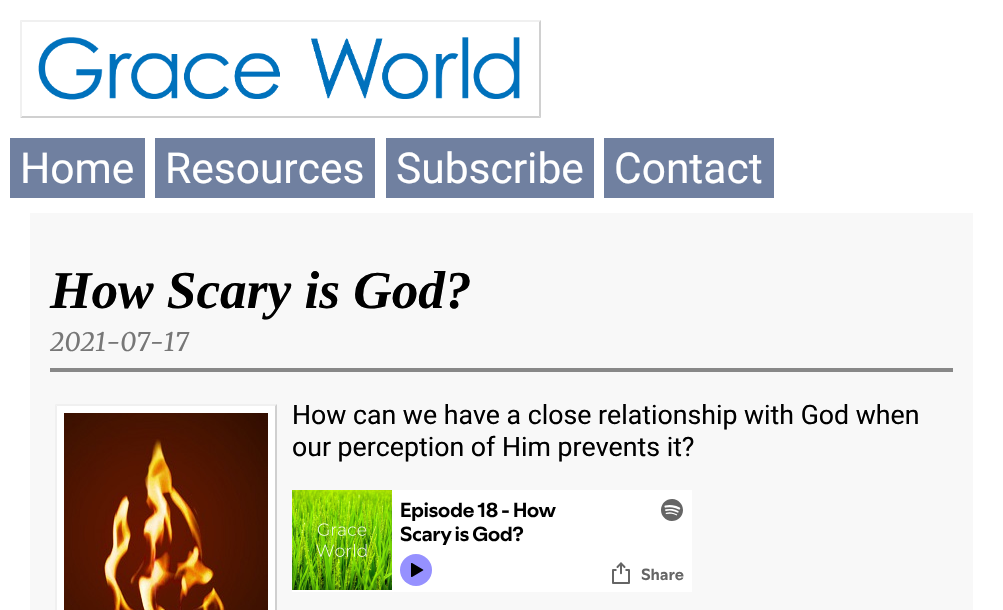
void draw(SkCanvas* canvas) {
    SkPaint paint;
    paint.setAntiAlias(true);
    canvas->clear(0xFFFFFFFF);
    paint.setColor(0xFFF0F0F0);
    canvas->drawPath(SkPathBuilder().moveTo(20, 20).lineTo(541, 20).lineTo(539, 22).lineTo(22, 22).close().detach(), paint);
    paint.setColor(0xFFD0D0D0);
    canvas->drawPath(SkPathBuilder().moveTo(541, 20).lineTo(541, 118).lineTo(539, 116).lineTo(539, 22).close().detach(), paint);
    canvas->drawPath(SkPathBuilder().moveTo(541, 118).lineTo(20, 118).lineTo(22, 116).lineTo(539, 116).close().detach(), paint);
    paint.setColor(0xFFF0F0F0);
    canvas->drawPath(SkPathBuilder().moveTo(20, 118).lineTo(20, 20).lineTo(22, 22).lineTo(22, 116).close().detach(), paint);
    canvas->drawImageRect(SkImages::DeferredFromEncodedData(SkData::MakeFromFileName("img1.png")), SkRect::MakeXYWH(38, 37, 482, 63), SkSamplingOptions());
    paint.setColor(0xFF7080A0);
    canvas->drawRect(SkRect::MakeXYWH(10, 138, 135, 60), paint);
    SkFont font1(fontMgr->matchFamilyStyle("Roboto", SkFontStyle::Normal()), 42.5f);
    font1.setSubpixel(true);
    paint.setColor(0xFFFFFFFF);
    canvas->drawString("Home", 20, 183, font1, paint);
    paint.setColor(0xFF7080A0);
    canvas->drawRect(SkRect::MakeXYWH(155, 138, 220, 60), paint);
    paint.setColor(0xFFFFFFFF);
    canvas->drawString("Resources", 165, 183, font1, paint);
    paint.setColor(0xFF7080A0);
    canvas->drawRect(SkRect::MakeXYWH(386, 138, 208, 60), paint);
    paint.setColor(0xFFFFFFFF);
    canvas->drawString("Subscribe", 396, 183, font1, paint);
    paint.setColor(0xFF7080A0);
    canvas->drawRect(SkRect::MakeXYWH(604, 138, 170, 60), paint);
    paint.setColor(0xFFFFFFFF);
    canvas->drawString("Contact", 614, 183, font1, paint);
    paint.setColor(0xFFF8F8F8);
    canvas->drawRect(SkRect::MakeXYWH(30, 213, 943, 397), paint);
    SkFont font2(fontMgr->matchFamilyStyle("Liberation Serif", SkFontStyle::BoldItalic()), 53.25f);
    font2.setSubpixel(true);
    paint.setColor(0xFF000000);
    canvas->drawString("How Scary is God?", 50, 308, font2, paint);
    SkFont font3(fontMgr->matchFamilyStyle("Merriweather", SkFontStyle::Italic()), 25.5f);
    font3.setSubpixel(true);
    paint.setColor(0xFF777777);
    canvas->drawString("2021-07-17", 50, 351, font3, paint);
    paint.setColor(0xFF888888);
    canvas->drawRect(SkRect::MakeXYWH(50, 368, 903, 4), paint);
    paint.setColor(0xFFFFFFFF);
    canvas->drawRect(SkRect::MakeXYWH(55, 404, 222, 206), paint);
    paint.setColor(0xFFF0F0F0);
    canvas->drawPath(SkPathBuilder().moveTo(55, 404).lineTo(277, 404).lineTo(275, 406).lineTo(57, 406).close().detach(), paint);
    paint.setColor(0xFFD0D0D0);
    canvas->drawPath(SkPathBuilder().moveTo(277, 404).lineTo(277, 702).lineTo(275, 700).lineTo(275, 406).close().detach(), paint);
    paint.setColor(0xFFF0F0F0);
    canvas->drawPath(SkPathBuilder().moveTo(55, 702).lineTo(55, 404).lineTo(57, 406).lineTo(57, 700).close().detach(), paint);
    canvas->drawImageRect(SkImages::DeferredFromEncodedData(SkData::MakeFromFileName("img2.png")), SkRect::MakeXYWH(64, 413, 204, 197), SkSamplingOptions());
    SkFont font4(fontMgr->matchFamilyStyle("Roboto", SkFontStyle::Normal()), 26.7f);
    font4.setSubpixel(true);
    paint.setColor(0xFF000000);
    canvas->drawString("How can we have a close relationship with God when", 292, 424, font4, paint);
    canvas->drawString("our perception of Him prevents it?", 292, 456, font4, paint);
    canvas->drawImageRect(SkImages::DeferredFromEncodedData(SkData::MakeFromFileName("img3.png")), SkRect::MakeXYWH(292, 490, 400, 102), SkSamplingOptions());
}
